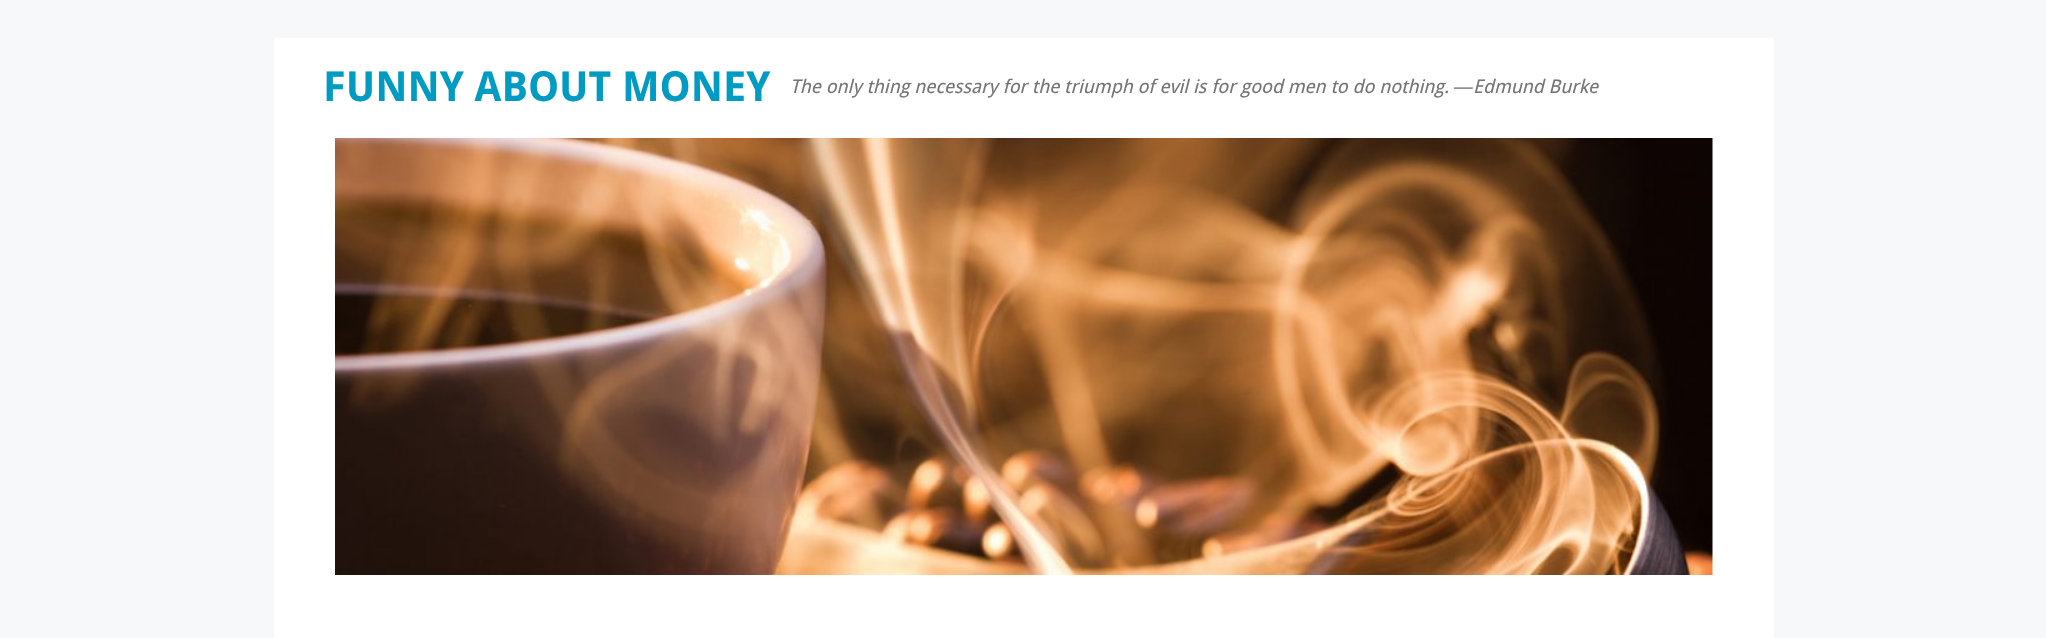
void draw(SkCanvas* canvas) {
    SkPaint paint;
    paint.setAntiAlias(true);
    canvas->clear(0xFFF7F8F9);
    paint.setColor(0xFFFFFFFF);
    canvas->drawRect(SkRect::MakeXYWH(274, 38, 1500, 600), paint);
    canvas->drawImageRect(SkImages::DeferredFromEncodedData(SkData::MakeFromFileName("img1.png")), SkRect::MakeXYWH(335, 138, 1378, 437), SkSamplingOptions());
    SkFont font1(fontMgr->matchFamilyStyle("Droid Sans", SkFontStyle::Bold()), 41.25f);
    font1.setSubpixel(true);
    paint.setColor(0xFF009BC2);
    canvas->drawString("FUNNY ABOUT MONEY", 323, 101, font1, paint);
    SkFont font2(fontMgr->matchFamilyStyle("Droid Sans", SkFontStyle::Italic()), 18.75f);
    font2.setSubpixel(true);
    paint.setColor(0xFF757575);
    canvas->drawString("The only thing necessary for the triumph of evil is for good men to do nothing.", 790, 93, font2, paint);
    SkFont font3(fontMgr->matchFamilyStyle("Liberation Sans", SkFontStyle::Italic()), 18.75f);
    font3.setSubpixel(true);
    canvas->drawString("―", 1454, 93, font3, paint);
    canvas->drawString("Edmund Burke", 1473, 93, font2, paint);
}
